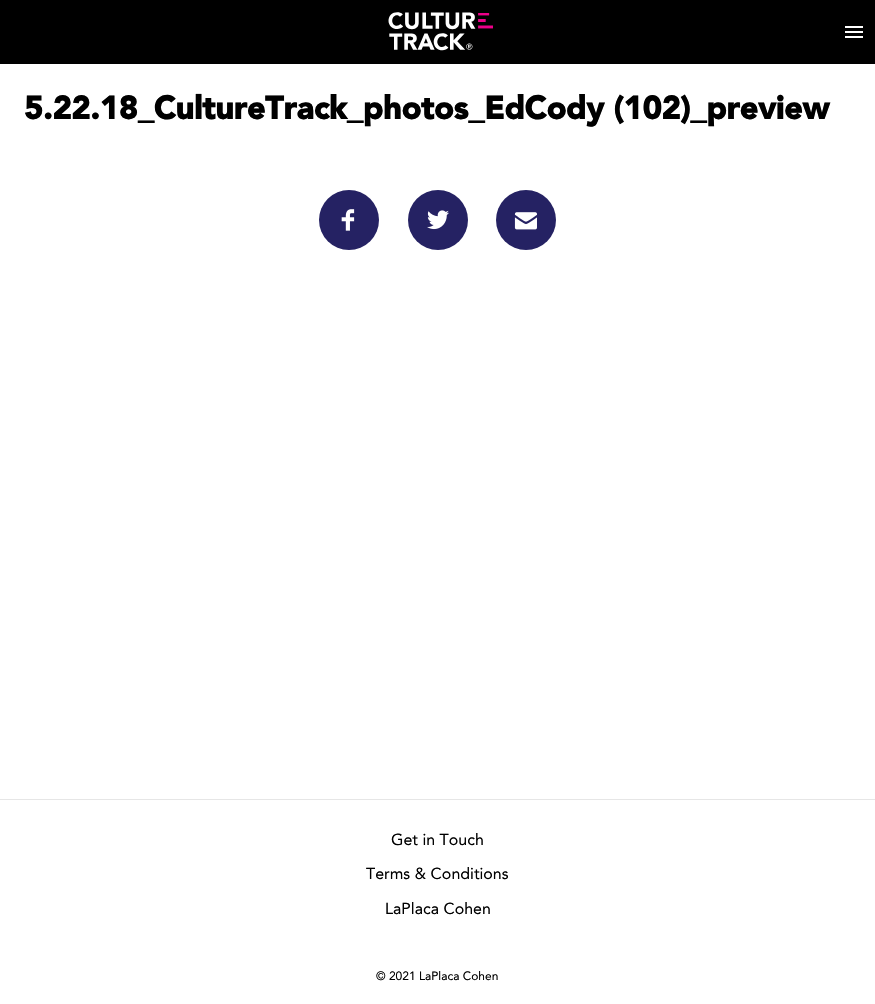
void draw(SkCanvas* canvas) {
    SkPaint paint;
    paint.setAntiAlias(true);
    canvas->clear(0xFFFFFFFF);
    paint.setColor(0xFF000000);
    canvas->drawRect(SkRect::MakeXYWH(0, 0, 875, 64), paint);
    canvas->drawImageRect(SkImages::DeferredFromEncodedData(SkData::MakeFromFileName("img1.png")), SkRect::MakeXYWH(388, 12, 105, 39), SkSamplingOptions());
    paint.setColor(0xFFFFFFFF);
    canvas->drawRect(SkRect::MakeXYWH(845, 26, 18, 2), paint);
    canvas->drawRect(SkRect::MakeXYWH(845, 31, 18, 2), paint);
    canvas->drawRect(SkRect::MakeXYWH(845, 36, 18, 2), paint);
    SkFont font1(fontMgr->matchFamilyStyle("Avenir", SkFontStyle::Bold()), 32);
    font1.setSubpixel(true);
    paint.setColor(0xFF000000);
    canvas->drawString("5.22.18_CultureTrack_photos_EdCody (102)_preview", 24, 119, font1, paint);
    paint.setColor(0xFF252263);
    canvas->drawCircle(349, 220, 30, paint);
    canvas->drawImageRect(SkImages::DeferredFromEncodedData(SkData::MakeFromFileName("img2.png")), SkRect::MakeXYWH(341, 209, 14, 22), SkSamplingOptions());
    canvas->drawCircle(438, 220, 30, paint);
    canvas->drawImageRect(SkImages::DeferredFromEncodedData(SkData::MakeFromFileName("img3.png")), SkRect::MakeXYWH(427, 210, 22, 20), SkSamplingOptions());
    canvas->drawCircle(526, 220, 30, paint);
    canvas->drawImageRect(SkImages::DeferredFromEncodedData(SkData::MakeFromFileName("img4.png")), SkRect::MakeXYWH(514, 212, 23, 18), SkSamplingOptions());
    paint.setColor(0xFFE6E6E6);
    canvas->drawRect(SkRect::MakeXYWH(0, 799, 875, 1), paint);
    SkFont font2(fontMgr->matchFamilyStyle("Avenir", SkFontStyle::Normal()), 16);
    font2.setSubpixel(true);
    paint.setColor(0xFF000000);
    canvas->drawString("Get in Touch", 391, 845, font2, paint);
    canvas->drawString("Terms & Conditions", 366, 879, font2, paint);
    canvas->drawString("LaPlaca Cohen", 385, 914, font2, paint);
    SkFont font3(fontMgr->matchFamilyStyle("Avenir", SkFontStyle::Normal()), 12);
    font3.setSubpixel(true);
    canvas->drawString("© 2021 LaPlaca Cohen", 376, 980, font3, paint);
}
